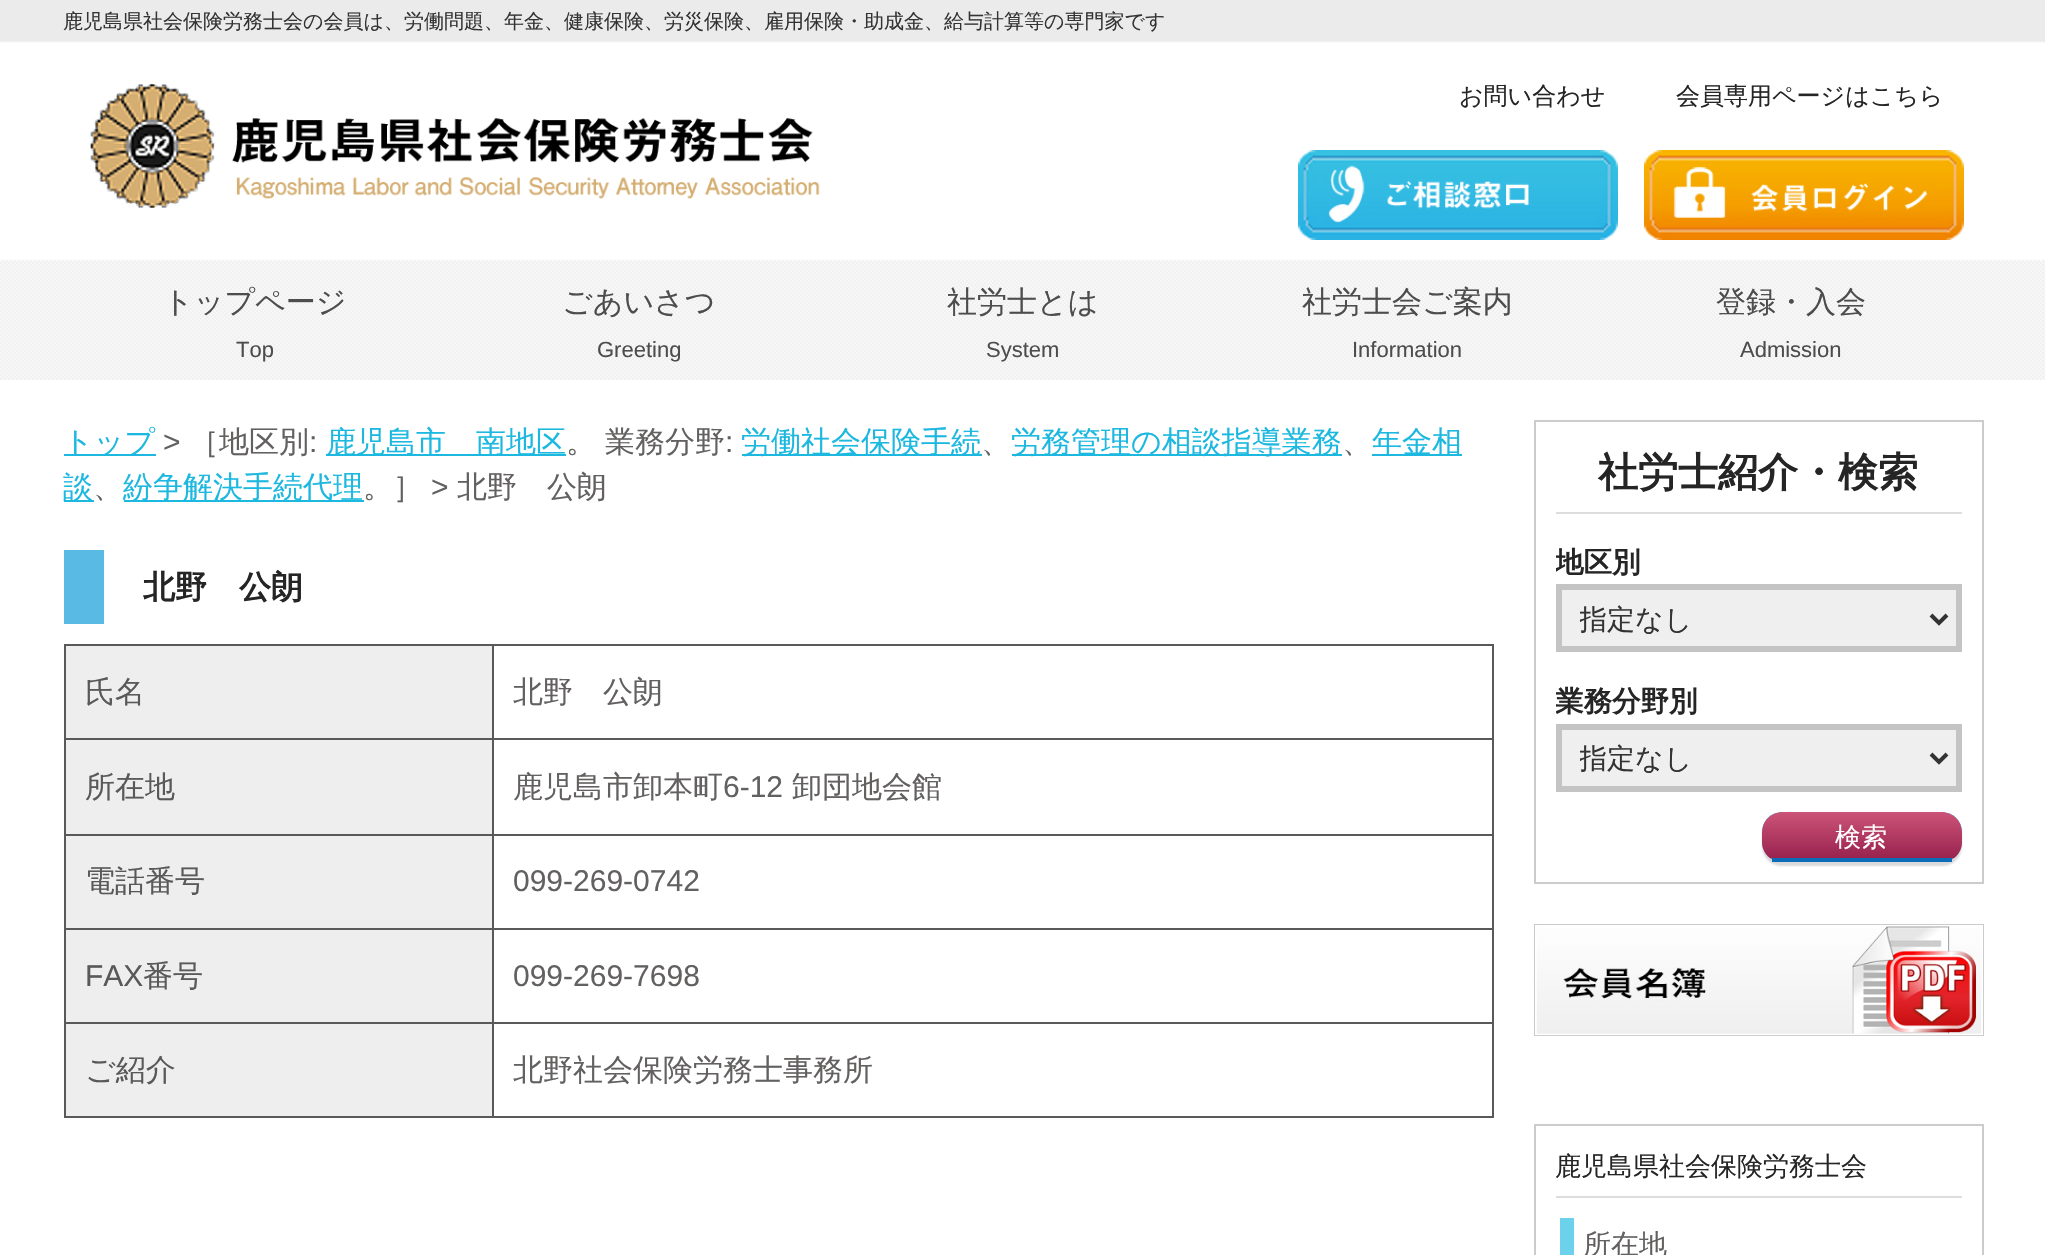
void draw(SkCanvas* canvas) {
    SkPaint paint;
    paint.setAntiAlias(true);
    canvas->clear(0xFFFFFFFF);
    canvas->drawImageRect(SkImages::DeferredFromEncodedData(SkData::MakeFromFileName("img1.png")), SkRect::MakeXYWH(0, 0, 2045, 380), SkSamplingOptions());
    SkFont font1(fontMgr->matchFamilyStyle("WenQuanYi Zen Hei", SkFontStyle(500, SkFontStyle::kNormal_Width, SkFontStyle::kUpright_Slant)), 20);
    font1.setSubpixel(true);
    paint.setColor(0xFF333333);
    canvas->drawString("鹿児島県社会保険労務士会の会員は、労働問題、年金、健康保険、労災保険、雇用保険・助成金、給与計算等の専門家です", 63, 28, font1, paint);
    canvas->drawImageRect(SkImages::DeferredFromEncodedData(SkData::MakeFromFileName("img2.png")), SkRect::MakeXYWH(90, 84, 730, 124), SkSamplingOptions());
    SkFont font2(fontMgr->matchFamilyStyle("WenQuanYi Zen Hei", SkFontStyle(500, SkFontStyle::kNormal_Width, SkFontStyle::kUpright_Slant)), 24);
    font2.setSubpixel(true);
    paint.setColor(0xFF252525);
    canvas->drawString("お問い合わせ", 1459, 104, font2, paint);
    canvas->drawString("会員専用ページはこちら", 1676, 104, font2, paint);
    canvas->drawImageRect(SkImages::DeferredFromEncodedData(SkData::MakeFromFileName("img3.png")), SkRect::MakeXYWH(1298, 150, 320, 90), SkSamplingOptions());
    canvas->drawImageRect(SkImages::DeferredFromEncodedData(SkData::MakeFromFileName("img4.png")), SkRect::MakeXYWH(1644, 150, 320, 90), SkSamplingOptions());
    SkFont font3(fontMgr->matchFamilyStyle("WenQuanYi Zen Hei", SkFontStyle(500, SkFontStyle::kNormal_Width, SkFontStyle::kUpright_Slant)), 30);
    font3.setSubpixel(true);
    paint.setColor(0xFF4D4D4D);
    canvas->drawString("トップページ", 163, 312, font3, paint);
    SkFont font4(fontMgr->matchFamilyStyle("Liberation Sans", SkFontStyle::Normal()), 22);
    font4.setSubpixel(true);
    canvas->drawString("Top", 236, 357, font4, paint);
    canvas->drawString("ごあいさつ", 562, 312, font3, paint);
    canvas->drawString("Greeting", 597, 357, font4, paint);
    canvas->drawString("社労士とは", 947, 312, font3, paint);
    canvas->drawString("System", 986, 357, font4, paint);
    canvas->drawString("社労士会ご案内", 1302, 312, font3, paint);
    canvas->drawString("Information", 1352, 357, font4, paint);
    canvas->drawString("登録・入会", 1716, 312, font3, paint);
    canvas->drawString("Admission", 1740, 357, font4, paint);
    paint.setColor(0xFF1CB8E0);
    canvas->drawRect(SkRect::MakeXYWH(64, 454, 92, 2), paint);
    canvas->drawString("トップ", 63, 452, font3, paint);
    SkFont font5(fontMgr->matchFamilyStyle("Liberation Sans", SkFontStyle::Normal()), 30);
    font5.setSubpixel(true);
    paint.setColor(0xFF636060);
    canvas->drawString(">", 163, 452, font5, paint);
    canvas->drawString("［地区別", 189, 452, font3, paint);
    canvas->drawString(":", 309, 452, font5, paint);
    paint.setColor(0xFF1CB8E0);
    canvas->drawRect(SkRect::MakeXYWH(326, 454, 240, 2), paint);
    canvas->drawString("鹿児島市　南地区", 326, 452, font3, paint);
    paint.setColor(0xFF636060);
    canvas->drawString("。 業務分野", 566, 452, font3, paint);
    canvas->drawString(":", 725, 452, font5, paint);
    paint.setColor(0xFF1CB8E0);
    canvas->drawRect(SkRect::MakeXYWH(742, 454, 240, 2), paint);
    canvas->drawString("労働社会保険手続", 741, 452, font3, paint);
    paint.setColor(0xFF636060);
    canvas->drawString("、", 981, 452, font3, paint);
    paint.setColor(0xFF1CB8E0);
    canvas->drawRect(SkRect::MakeXYWH(1012, 454, 330, 2), paint);
    canvas->drawString("労務管理の相談指導業務", 1011, 452, font3, paint);
    paint.setColor(0xFF636060);
    canvas->drawString("、", 1342, 452, font3, paint);
    paint.setColor(0xFF1CB8E0);
    canvas->drawRect(SkRect::MakeXYWH(1372, 454, 90, 2), paint);
    canvas->drawString("年金相", 1372, 452, font3, paint);
    canvas->drawRect(SkRect::MakeXYWH(64, 500, 30, 2), paint);
    canvas->drawString("談", 63, 497, font3, paint);
    canvas->drawRect(SkRect::MakeXYWH(124, 500, 240, 2), paint);
    canvas->drawString("紛争解決手続代理", 123, 497, font3, paint);
    paint.setColor(0xFF636060);
    canvas->drawString("。］", 363, 497, font3, paint);
    canvas->drawString(">", 431, 497, font5, paint);
    canvas->drawString("北野　公朗", 457, 497, font3, paint);
    canvas->drawString("、", 93, 497, font3, paint);
    paint.setColor(0xFF59BAE3);
    canvas->drawRect(SkRect::MakeXYWH(64, 550, 40, 74), paint);
    SkFont font6(fontMgr->matchFamilyStyle("WenQuanYi Zen Hei", SkFontStyle::Bold()), 32);
    font6.setSubpixel(true);
    paint.setColor(0xFF252525);
    canvas->drawString("北野　公朗", 143, 598, font6, paint);
    paint.setColor(0xFFEEEEEE);
    canvas->drawRect(SkRect::MakeXYWH(66, 646, 426, 92), paint);
    paint.setColor(0xFF595959);
    canvas->drawRect(SkRect::MakeXYWH(492, 644, 1002, 2), paint);
    canvas->drawRect(SkRect::MakeXYWH(492, 738, 1002, 2), paint);
    canvas->drawRect(SkRect::MakeXYWH(492, 834, 1002, 2), paint);
    canvas->drawRect(SkRect::MakeXYWH(492, 928, 1002, 2), paint);
    canvas->drawRect(SkRect::MakeXYWH(492, 1022, 1002, 2), paint);
    canvas->drawRect(SkRect::MakeXYWH(1492, 1022, 2, 96), paint);
    canvas->drawRect(SkRect::MakeXYWH(492, 1116, 1002, 2), paint);
    canvas->drawRect(SkRect::MakeXYWH(492, 1022, 2, 96), paint);
    canvas->drawRect(SkRect::MakeXYWH(64, 1022, 430, 2), paint);
    canvas->drawRect(SkRect::MakeXYWH(492, 928, 2, 96), paint);
    canvas->drawRect(SkRect::MakeXYWH(64, 928, 430, 2), paint);
    canvas->drawRect(SkRect::MakeXYWH(492, 834, 2, 96), paint);
    canvas->drawRect(SkRect::MakeXYWH(64, 834, 430, 2), paint);
    canvas->drawRect(SkRect::MakeXYWH(492, 738, 2, 98), paint);
    canvas->drawRect(SkRect::MakeXYWH(64, 738, 430, 2), paint);
    canvas->drawRect(SkRect::MakeXYWH(492, 644, 2, 96), paint);
    canvas->drawRect(SkRect::MakeXYWH(64, 644, 430, 2), paint);
    canvas->drawRect(SkRect::MakeXYWH(64, 1116, 430, 2), paint);
    canvas->drawRect(SkRect::MakeXYWH(64, 1022, 2, 96), paint);
    canvas->drawRect(SkRect::MakeXYWH(64, 928, 2, 96), paint);
    canvas->drawRect(SkRect::MakeXYWH(64, 834, 2, 96), paint);
    canvas->drawRect(SkRect::MakeXYWH(64, 738, 2, 98), paint);
    canvas->drawRect(SkRect::MakeXYWH(64, 644, 2, 96), paint);
    canvas->drawString("氏名", 85, 702, font3, paint);
    canvas->drawRect(SkRect::MakeXYWH(1492, 928, 2, 96), paint);
    canvas->drawRect(SkRect::MakeXYWH(1492, 834, 2, 96), paint);
    canvas->drawRect(SkRect::MakeXYWH(1492, 738, 2, 98), paint);
    canvas->drawRect(SkRect::MakeXYWH(1492, 644, 2, 96), paint);
    paint.setColor(0xFF636060);
    canvas->drawString("北野　公朗", 513, 702, font3, paint);
    paint.setColor(0xFFEEEEEE);
    canvas->drawRect(SkRect::MakeXYWH(66, 740, 426, 94), paint);
    paint.setColor(0xFF595959);
    canvas->drawString("所在地", 85, 797, font3, paint);
    paint.setColor(0xFF636060);
    canvas->drawString("鹿児島市卸本町", 513, 797, font3, paint);
    canvas->drawString("6-12", 723, 797, font5, paint);
    canvas->drawString("卸団地会館", 792, 797, font3, paint);
    paint.setColor(0xFFEEEEEE);
    canvas->drawRect(SkRect::MakeXYWH(66, 836, 426, 92), paint);
    paint.setColor(0xFF595959);
    canvas->drawString("電話番号", 85, 891, font3, paint);
    paint.setColor(0xFF636060);
    canvas->drawString("099-269-0742", 513, 891, font5, paint);
    paint.setColor(0xFFEEEEEE);
    canvas->drawRect(SkRect::MakeXYWH(66, 930, 426, 92), paint);
    paint.setColor(0xFF595959);
    canvas->drawString("FAX", 85, 986, font5, paint);
    canvas->drawString("番号", 143, 986, font3, paint);
    paint.setColor(0xFF636060);
    canvas->drawString("099-269-7698", 513, 986, font5, paint);
    paint.setColor(0xFFEEEEEE);
    canvas->drawRect(SkRect::MakeXYWH(66, 1024, 426, 92), paint);
    paint.setColor(0xFF595959);
    canvas->drawString("ご紹介", 85, 1080, font3, paint);
    paint.setColor(0xFF636060);
    canvas->drawString("北野社会保険労務士事務所", 513, 1080, font3, paint);
    paint.setStyle(SkPaint::kStroke_Style);
    paint.setStrokeWidth(2);
    paint.setColor(0xFFCCCCCC);
    canvas->drawRect(SkRect::MakeXYWH(1535, 421, 448, 462), paint);
    paint.setStyle(SkPaint::kFill_Style);
    paint.setColor(0xFFDDDDDD);
    canvas->drawRect(SkRect::MakeXYWH(1556, 512, 406, 2), paint);
    SkFont font7(fontMgr->matchFamilyStyle("WenQuanYi Zen Hei", SkFontStyle::Bold()), 40);
    font7.setSubpixel(true);
    paint.setColor(0xFF252525);
    canvas->drawString("社労士紹介・検索", 1598, 486, font7, paint);
    canvas->save();
    canvas->clipRect(SkRect::MakeXYWH(1556, 534, 396, 50));
    SkFont font8(fontMgr->matchFamilyStyle("WenQuanYi Zen Hei", SkFontStyle::Bold()), 28.5f);
    font8.setSubpixel(true);
    canvas->drawString("地区別", 1555, 572, font8, paint);
    canvas->restore();
    paint.setColor(0xFFEFEFEF);
    canvas->drawRect(SkRect::MakeXYWH(1559, 587, 400, 62), paint);
    paint.setStyle(SkPaint::kStroke_Style);
    paint.setStrokeWidth(6);
    paint.setColor(0xFFC4C4C4);
    canvas->drawRect(SkRect::MakeXYWH(1559, 587, 400, 62), paint);
    paint.setStrokeWidth(4);
    paint.setColor(0xFF333333);
    canvas->drawPath(SkPathBuilder().moveTo(1931, 615).lineTo(1939, 623).lineTo(1947, 615).detach(), paint);
    canvas->save();
    canvas->clipRect(SkRect::MakeXYWH(1580, 600, 334, 36));
    SkFont font9(fontMgr->matchFamilyStyle("WenQuanYi Zen Hei", SkFontStyle(500, SkFontStyle::kNormal_Width, SkFontStyle::kUpright_Slant)), 28);
    font9.setSubpixel(true);
    paint.setStyle(SkPaint::kFill_Style);
    canvas->drawString("指定なし", 1579, 629, font9, paint);
    canvas->restore();
    canvas->save();
    canvas->clipRect(SkRect::MakeXYWH(1556, 672, 396, 52));
    paint.setColor(0xFF252525);
    canvas->drawString("業務分野別", 1555, 711, font8, paint);
    canvas->restore();
    paint.setColor(0xFFEFEFEF);
    canvas->drawRect(SkRect::MakeXYWH(1559, 727, 400, 62), paint);
    paint.setStyle(SkPaint::kStroke_Style);
    paint.setStrokeWidth(6);
    paint.setColor(0xFFC4C4C4);
    canvas->drawRect(SkRect::MakeXYWH(1559, 727, 400, 62), paint);
    paint.setStrokeWidth(4);
    paint.setColor(0xFF333333);
    canvas->drawPath(SkPathBuilder().moveTo(1931, 754).lineTo(1939, 762).lineTo(1947, 754).detach(), paint);
    canvas->save();
    canvas->clipRect(SkRect::MakeXYWH(1580, 740, 334, 36));
    paint.setStyle(SkPaint::kFill_Style);
    canvas->drawString("指定なし", 1579, 768, font9, paint);
    canvas->restore();
    paint.setColor(0xFFD9D9D9);
    paint.setMaskFilter(SkMaskFilter::MakeBlur(kNormal_SkBlurStyle, 1));
    canvas->drawRoundRect(SkRect::MakeXYWH(1762, 816, 200, 50), 20, 20, paint);
    paint.setMaskFilter(nullptr);
    paint.setColor(0xFF54B5DF);
    canvas->drawRoundRect(SkRect::MakeXYWH(1762, 812, 200, 50), 20, 20, paint);
    canvas->save();
    canvas->clipPath(SkPathBuilder().moveTo(1782, 812).lineTo(1942, 812).cubicTo(1953, 812, 1962, 821, 1962, 832).lineTo(1962, 842).cubicTo(1962, 853, 1953, 862, 1942, 862).lineTo(1782, 862).cubicTo(1771, 862, 1762, 853, 1762, 842).lineTo(1762, 832).cubicTo(1762, 821, 1771, 812, 1782, 812).close().detach(), true);
    {
        const SkColor colors[] = {0xFFCC5478, 0xFF9A234F};
        const float stops[] = {0, 1};
        const SkPoint ends[] = {{1862, 812}, {1862, 858}};
        paint.setShader(SkGradientShader::MakeLinear(ends, colors, stops, 2, SkTileMode::kClamp));
        paint.setAlpha(255);
    }
    canvas->drawPath(SkPathBuilder().moveTo(1782, 812).lineTo(1942, 812).cubicTo(1953, 812, 1962, 821, 1962, 832).lineTo(1962, 858).lineTo(1762, 858).lineTo(1762, 832).cubicTo(1762, 821, 1771, 812, 1782, 812).close().detach(), paint);
    {
        const SkColor colors[] = {0xFFCC5478, 0xFF9A234F};
        const float stops[] = {0, 1};
        const SkPoint ends[] = {{1862, 858}, {1862, 904}};
        paint.setShader(SkGradientShader::MakeLinear(ends, colors, stops, 2, SkTileMode::kClamp));
        paint.setAlpha(255);
    }
    canvas->drawRect(SkRect::MakeXYWH(1762, 858, 200, 2), paint);
    canvas->restore();
    paint.setShader(nullptr);
    paint.setColor(0xFF0B6CBA);
    canvas->drawRect(SkRect::MakeXYWH(1772, 858, 180, 4), paint);
    SkFont font10(fontMgr->matchFamilyStyle("WenQuanYi Zen Hei", SkFontStyle(500, SkFontStyle::kNormal_Width, SkFontStyle::kUpright_Slant)), 26);
    font10.setSubpixel(true);
    paint.setColor(0xFFFFFFFF);
    canvas->drawString("検索", 1835, 846, font10, paint);
    canvas->drawImageRect(SkImages::DeferredFromEncodedData(SkData::MakeFromFileName("img5.png")), SkRect::MakeXYWH(1534, 924, 450, 112), SkSamplingOptions());
    paint.setStyle(SkPaint::kStroke_Style);
    paint.setStrokeWidth(2);
    paint.setColor(0xFFCCCCCC);
    canvas->drawRect(SkRect::MakeXYWH(1535, 1125, 448, 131), paint);
    paint.setStyle(SkPaint::kFill_Style);
    paint.setColor(0xFFDDDDDD);
    canvas->drawRect(SkRect::MakeXYWH(1556, 1196, 406, 2), paint);
    paint.setColor(0xFF252525);
    canvas->drawString("鹿児島県社会保険労務士会", 1555, 1175, font10, paint);
    paint.setColor(0xFF6CD1EA);
    canvas->drawRect(SkRect::MakeXYWH(1560, 1218, 14, 37), paint);
    paint.setColor(0xFF636060);
    canvas->drawString("所在地", 1583, 1254, font9, paint);
}
